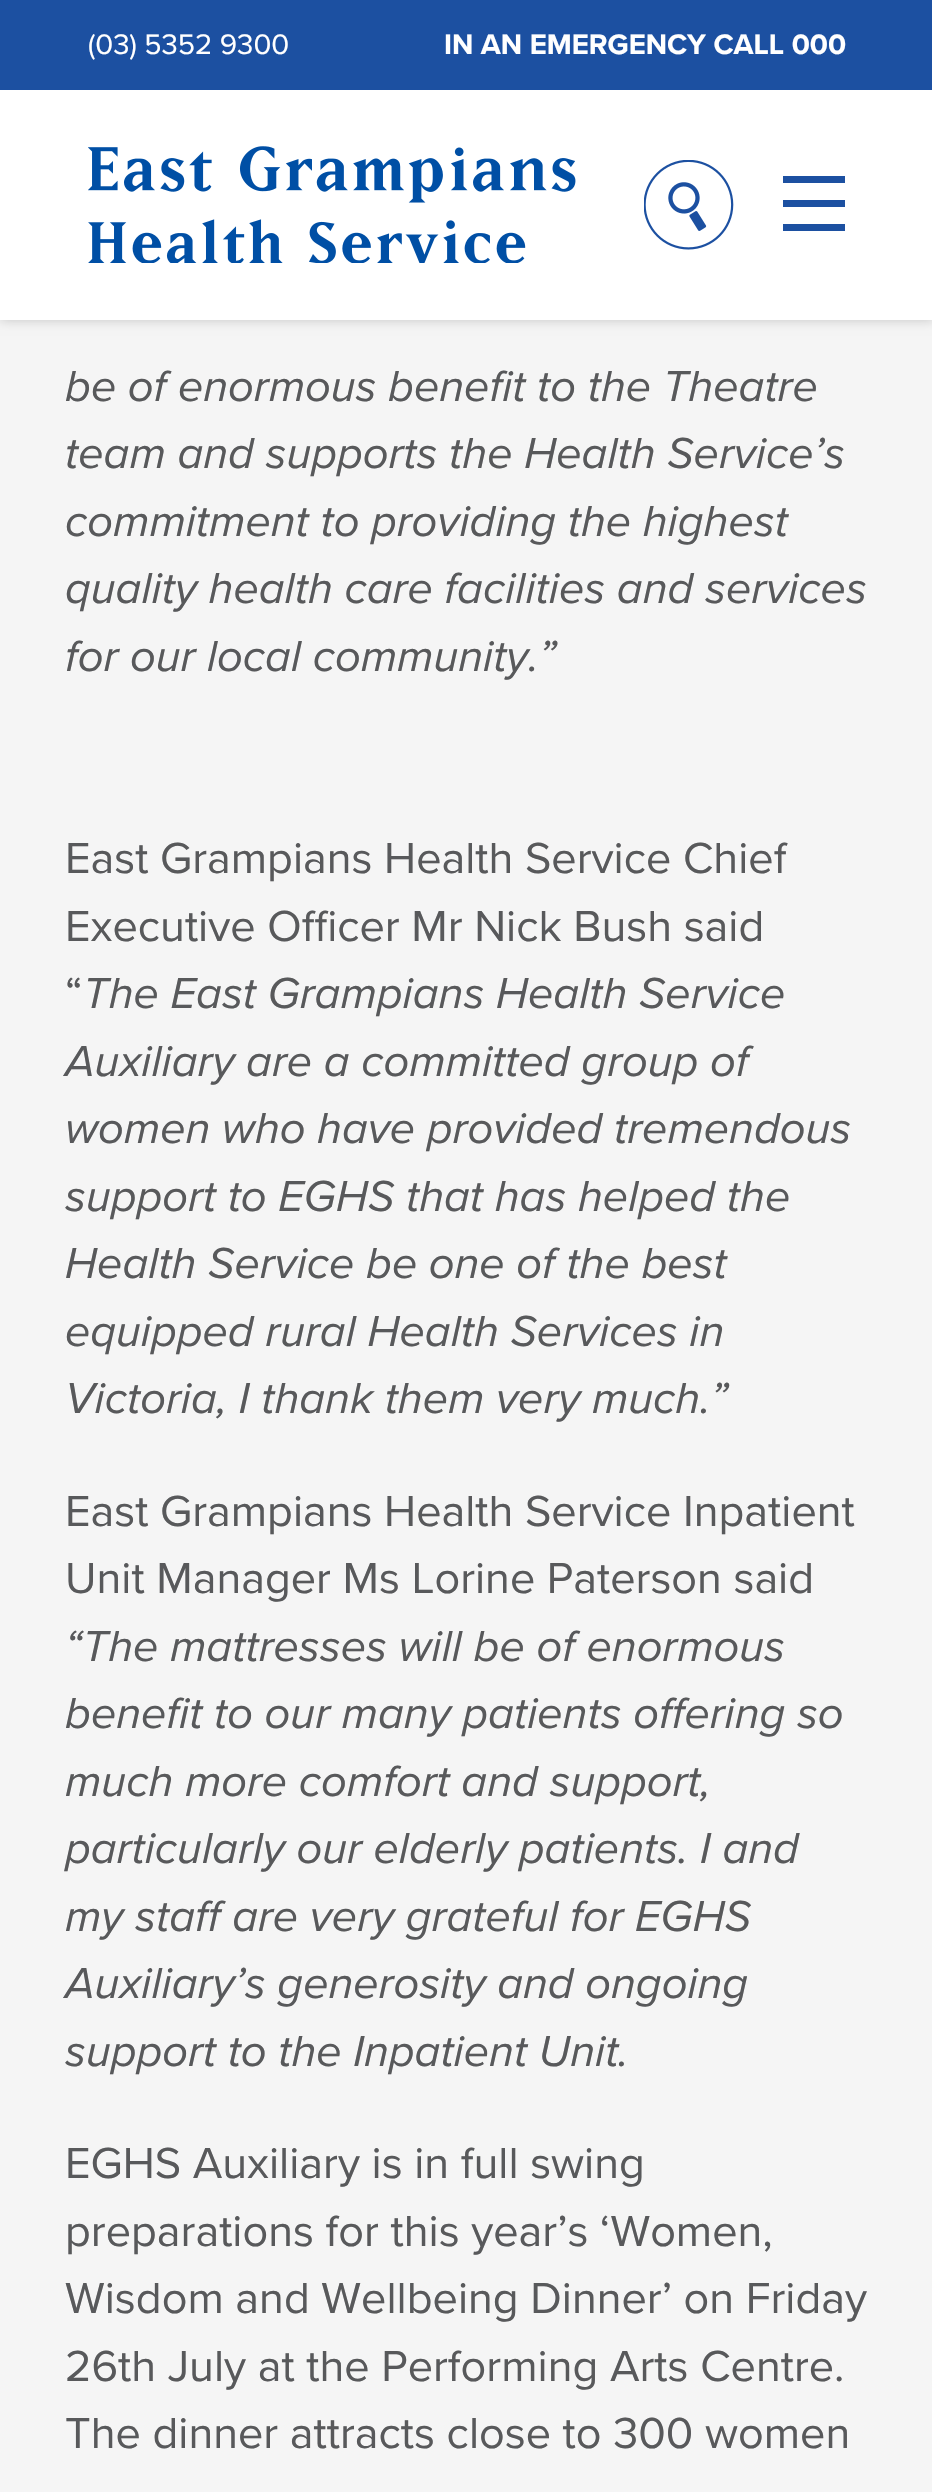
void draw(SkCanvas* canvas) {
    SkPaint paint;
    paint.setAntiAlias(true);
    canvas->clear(0xFFF5F5F5);
    paint.setColor(0x33000000);
    paint.setMaskFilter(SkMaskFilter::MakeBlur(kNormal_SkBlurStyle, 5.5f));
    canvas->drawRect(SkRect::MakeXYWH(0, 0, 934, 320), paint);
    paint.setMaskFilter(nullptr);
    paint.setColor(0xFFFFFFFF);
    canvas->drawRect(SkRect::MakeXYWH(0, 90, 932, 230), paint);
    paint.setColor(0xFF1C50A1);
    canvas->drawRect(SkRect::MakeXYWH(0, 0, 932, 90), paint);
    SkFont font1(fontMgr->matchFamilyStyle("Proxima Nova", SkFontStyle::Normal()), 29.25f);
    font1.setSubpixel(true);
    paint.setColor(0xFFFFFFFF);
    canvas->drawString("(03) 5352 9300", 88, 54, font1, paint);
    SkFont font2(fontMgr->matchFamilyStyle("Proxima Nova", SkFontStyle::Bold()), 29.25f);
    font2.setSubpixel(true);
    canvas->drawString("IN AN EMERGENCY CALL 000", 444, 54, font2, paint);
    canvas->drawImageRect(SkImages::DeferredFromEncodedData(SkData::MakeFromFileName("img1.png")), SkRect::MakeXYWH(88, 146, 488, 117), SkSamplingOptions());
    canvas->drawImageRect(SkImages::DeferredFromEncodedData(SkData::MakeFromFileName("img2.png")), SkRect::MakeXYWH(644, 160, 90, 90), SkSamplingOptions());
    paint.setColor(0xFF1C50A1);
    canvas->drawPath(SkPathBuilder().moveTo(783, 176).lineTo(845, 176).lineTo(845, 183).lineTo(783, 183).close().moveTo(783, 200).lineTo(845, 200).lineTo(845, 207).lineTo(783, 207).close().moveTo(783, 224).lineTo(845, 224).lineTo(845, 231).lineTo(783, 231).close().detach(), paint);
    SkFont font3(fontMgr->matchFamilyStyle("Proxima Nova", SkFontStyle::Italic()), 45);
    font3.setSubpixel(true);
    paint.setColor(0xFF58595B);
    canvas->drawString("be of enormous benefit to the Theatre", 65, 401, font3, paint);
    canvas->drawString("team and supports the Health Service’s", 65, 468, font3, paint);
    canvas->drawString("commitment to providing the highest", 65, 536, font3, paint);
    canvas->drawString("quality health care facilities and services", 65, 603, font3, paint);
    canvas->drawString("for our local community.”", 65, 671, font3, paint);
    SkFont font4(fontMgr->matchFamilyStyle("Proxima Nova", SkFontStyle::Normal()), 45);
    font4.setSubpixel(true);
    canvas->drawString("East Grampians Health Service Chief", 65, 873, font4, paint);
    canvas->drawString("Executive Officer Mr Nick Bush said", 65, 941, font4, paint);
    canvas->drawString("“", 65, 1008, font4, paint);
    canvas->drawString("The East Grampians Health Service", 83, 1008, font3, paint);
    canvas->drawString("Auxiliary are a committed group of", 65, 1076, font3, paint);
    canvas->drawString("women who have provided tremendous", 65, 1143, font3, paint);
    canvas->drawString("support to EGHS that has helped the", 65, 1211, font3, paint);
    canvas->drawString("Health Service be one of the best", 65, 1278, font3, paint);
    canvas->drawString("equipped rural Health Services in", 65, 1346, font3, paint);
    canvas->drawString("Victoria, I thank them very much.”", 65, 1413, font3, paint);
    canvas->drawString("East Grampians Health Service Inpatient", 65, 1526, font4, paint);
    canvas->drawString("Unit Manager Ms Lorine Paterson said", 65, 1593, font4, paint);
    canvas->drawString("“The mattresses will be of enormous", 65, 1661, font3, paint);
    canvas->drawString("benefit to our many patients offering so", 65, 1728, font3, paint);
    canvas->drawString("much more comfort and support,", 65, 1796, font3, paint);
    canvas->drawString("particularly our elderly patients. I and", 65, 1863, font3, paint);
    canvas->drawString("my staff are very grateful for EGHS", 65, 1931, font3, paint);
    canvas->drawString("Auxiliary’s generosity and ongoing", 65, 1998, font3, paint);
    canvas->drawString("support to the Inpatient Unit.", 65, 2066, font3, paint);
    canvas->drawString("EGHS Auxiliary is in full swing", 65, 2178, font4, paint);
    canvas->drawString("preparations for this year’s ‘Women,", 65, 2246, font4, paint);
    canvas->drawString("Wisdom and Wellbeing Dinner’ on Friday", 65, 2313, font4, paint);
    canvas->drawString("26th July at the Performing Arts Centre.", 65, 2381, font4, paint);
    canvas->drawString("The dinner attracts close to 300 women", 65, 2448, font4, paint);
}
